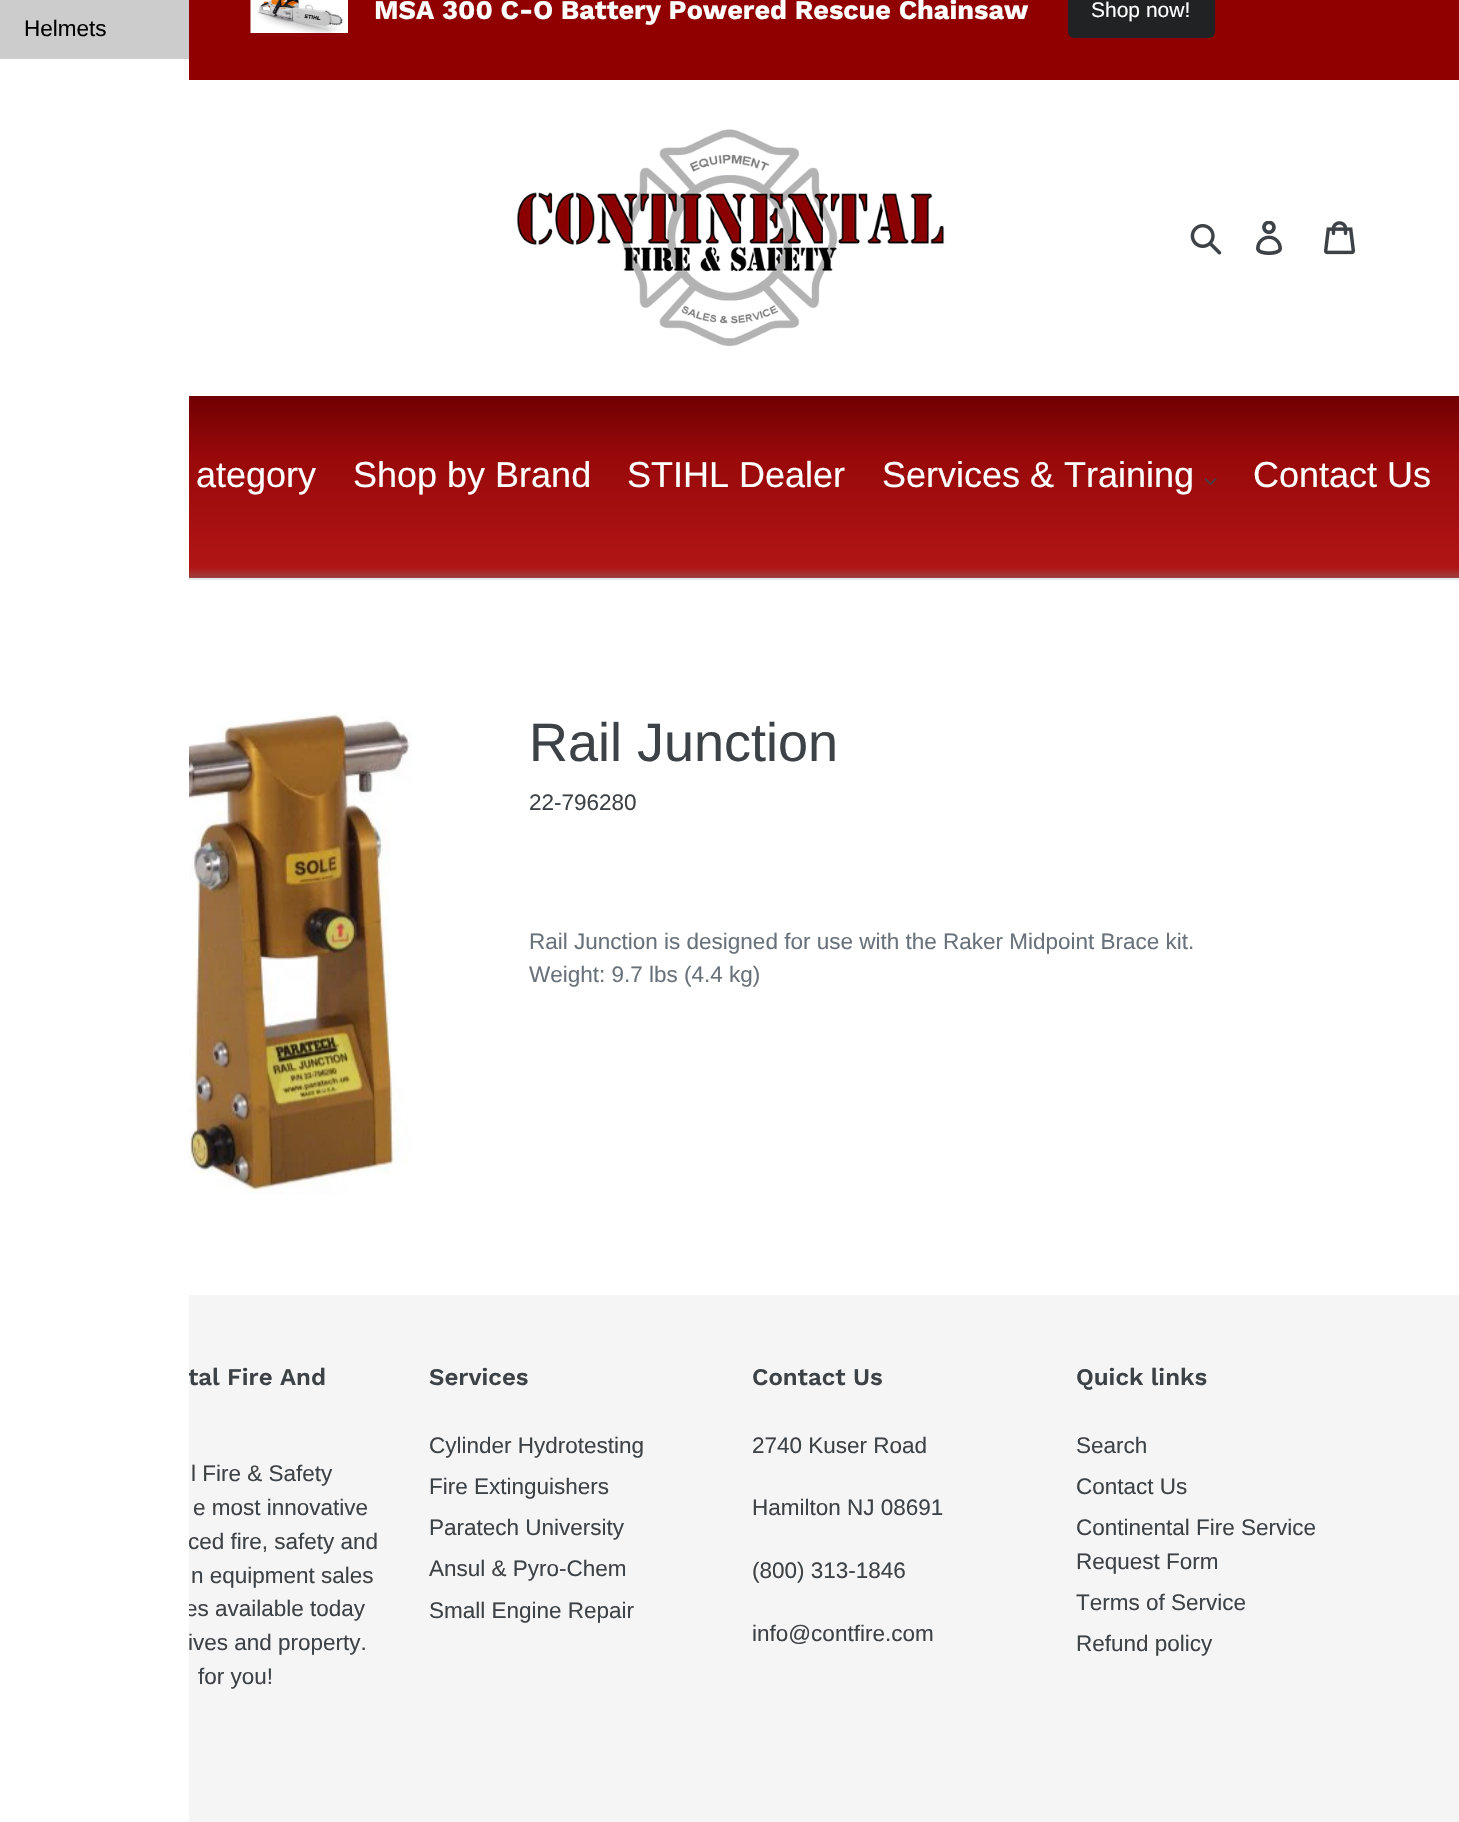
void draw(SkCanvas* canvas) {
    SkPaint paint;
    paint.setAntiAlias(true);
    canvas->clear(0xFFFFFFFF);
    paint.setColor(0xFF900000);
    canvas->drawRect(SkRect::MakeXYWH(189, 0, 1270, 80), paint);
    canvas->drawImageRect(SkImages::DeferredFromEncodedData(SkData::MakeFromFileName("img1.png")), SkRect::MakeXYWH(250, 0, 98, 33), SkSamplingOptions());
    SkFont font1(fontMgr->matchFamilyStyle("Work Sans", SkFontStyle::Bold()), 27);
    font1.setSubpixel(true);
    paint.setColor(0xFFFFFFFF);
    canvas->drawString("MSA 300 C-O Battery Powered Rescue Chainsaw", 374, 19, font1, paint);
    paint.setColor(0xFF202223);
    canvas->drawRoundRect(SkRect::MakeXYWH(1068, -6, 147, 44), 6, 6, paint);
    SkFont font2(fontMgr->matchFamilyStyle("Liberation Sans", SkFontStyle::Normal()), 21);
    font2.setSubpixel(true);
    paint.setColor(0xFFFFFFFF);
    canvas->drawString("Shop now!", 1091, 17, font2, paint);
    paint.setColor(0xFFCCCCCC);
    canvas->drawRect(SkRect::MakeXYWH(0, 0, 189, 59), paint);
    SkFont font3(fontMgr->matchFamilyStyle("Liberation Sans", SkFontStyle::Normal()), 22.5f);
    font3.setSubpixel(true);
    paint.setColor(0xFF000000);
    canvas->drawString("Helmets", 24, 36, font3, paint);
    paint.setColor(0xFFF5F5F5);
    canvas->drawRect(SkRect::MakeXYWH(189, 1295, 1270, 527), paint);
    SkFont font4(fontMgr->matchFamilyStyle("Work Sans", SkFontStyle(600, SkFontStyle::kNormal_Width, SkFontStyle::kUpright_Slant)), 24);
    font4.setSubpixel(true);
    paint.setColor(0xFF3D4246);
    canvas->drawString("tal Fire And", 188, 1385, font4, paint);
    canvas->drawString("ced fire, safety and", 188, 1549, font3, paint);
    canvas->drawString("es available today", 185, 1616, font3, paint);
    paint.setColor(0xFFFFFFFF);
    canvas->drawRect(SkRect::MakeXYWH(186, 1373, 3, 243), paint);
    canvas->drawImageRect(SkImages::DeferredFromEncodedData(SkData::MakeFromFileName("img2.png")), SkRect::MakeXYWH(517, 129, 428, 218), SkSamplingOptions());
    canvas->drawImageRect(SkImages::DeferredFromEncodedData(SkData::MakeFromFileName("img3.png")), SkRect::MakeXYWH(1190, 224, 32, 31), SkSamplingOptions());
    canvas->drawImageRect(SkImages::DeferredFromEncodedData(SkData::MakeFromFileName("img4.png")), SkRect::MakeXYWH(1256, 221, 26, 34), SkSamplingOptions());
    canvas->drawImageRect(SkImages::DeferredFromEncodedData(SkData::MakeFromFileName("img5.png")), SkRect::MakeXYWH(1324, 221, 31, 34), SkSamplingOptions());
    {
        const SkColor colors[] = {0xFF710002, 0xFF99090A, 0xFFB01515, 0xFF9C3F3F};
        const float stops[] = {0, 0.34f, 0.94f, 1};
        const SkPoint ends[] = {{730, 396}, {730, 578}};
        paint.setShader(SkGradientShader::MakeLinear(ends, colors, stops, 4, SkTileMode::kClamp));
        paint.setAlpha(255);
    }
    canvas->drawRect(SkRect::MakeXYWH(189, 396, 1270, 182), paint);
    paint.setShader(nullptr);
    paint.setColor(0xFFE8E9EB);
    canvas->drawRect(SkRect::MakeXYWH(189, 578, 1270, 2), paint);
    SkFont font5(fontMgr->matchFamilyStyle("Liberation Sans", SkFontStyle::Normal()), 36);
    font5.setSubpixel(true);
    paint.setColor(0xFFFFFFFF);
    canvas->drawString("ategory", 196, 487, font5, paint);
    canvas->drawString("Shop by Brand", 353, 487, font5, paint);
    canvas->drawString("STIHL Dealer", 627, 487, font5, paint);
    canvas->drawString("Services & Training", 882, 487, font5, paint);
    canvas->drawImageRect(SkImages::DeferredFromEncodedData(SkData::MakeFromFileName("img6.png")), SkRect::MakeXYWH(1205, 478, 12, 7), SkSamplingOptions());
    canvas->drawString("Contact Us", 1253, 487, font5, paint);
    canvas->drawImageRect(SkImages::DeferredFromEncodedData(SkData::MakeFromFileName("img7.png")), SkRect::MakeXYWH(189, 712, 223, 483), SkSamplingOptions());
    SkFont font6(fontMgr->matchFamilyStyle("Liberation Sans", SkFontStyle::Normal()), 54);
    font6.setSubpixel(true);
    paint.setColor(0xFF3D4246);
    canvas->drawString("Rail Junction", 529, 761, font6, paint);
    canvas->drawString("22-796280", 529, 810, font3, paint);
    paint.setColor(0xFF69727B);
    canvas->drawString("Rail Junction is designed for use with the Raker Midpoint Brace kit.", 529, 949, font3, paint);
    canvas->drawString("Weight: 9.7 lbs (4.4 kg)", 529, 982, font3, paint);
    paint.setColor(0xFF3D4246);
    canvas->drawString("l Fire & Safety", 191, 1481, font3, paint);
    canvas->drawString("e most innovative", 193, 1515, font3, paint);
    canvas->drawString("n equipment sales", 191, 1583, font3, paint);
    canvas->drawString("ives and property.", 188, 1650, font3, paint);
    canvas->drawString("for you!", 198, 1684, font3, paint);
    canvas->drawString("Services", 429, 1385, font4, paint);
    canvas->drawString("Cylinder Hydrotesting", 429, 1453, font3, paint);
    canvas->drawString("Fire Extinguishers", 429, 1494, font3, paint);
    canvas->drawString("Paratech University", 429, 1535, font3, paint);
    canvas->drawString("Ansul & Pyro-Chem", 429, 1576, font3, paint);
    canvas->drawString("Small Engine Repair", 429, 1618, font3, paint);
    canvas->drawString("Contact Us", 752, 1385, font4, paint);
    canvas->drawString("2740 Kuser Road", 752, 1453, font3, paint);
    canvas->drawString("Hamilton NJ 08691", 752, 1515, font3, paint);
    canvas->drawString("(800) 313-1846", 752, 1578, font3, paint);
    canvas->drawString("info@contfire.com", 752, 1641, font3, paint);
    canvas->drawString("Quick links", 1076, 1385, font4, paint);
    canvas->drawString("Search", 1076, 1453, font3, paint);
    canvas->drawString("Contact Us", 1076, 1494, font3, paint);
    canvas->drawString("Continental Fire Service", 1076, 1535, font3, paint);
    canvas->drawString("Request Form", 1076, 1569, font3, paint);
    canvas->drawString("Terms of Service", 1076, 1610, font3, paint);
    canvas->drawString("Refund policy", 1076, 1651, font3, paint);
}
